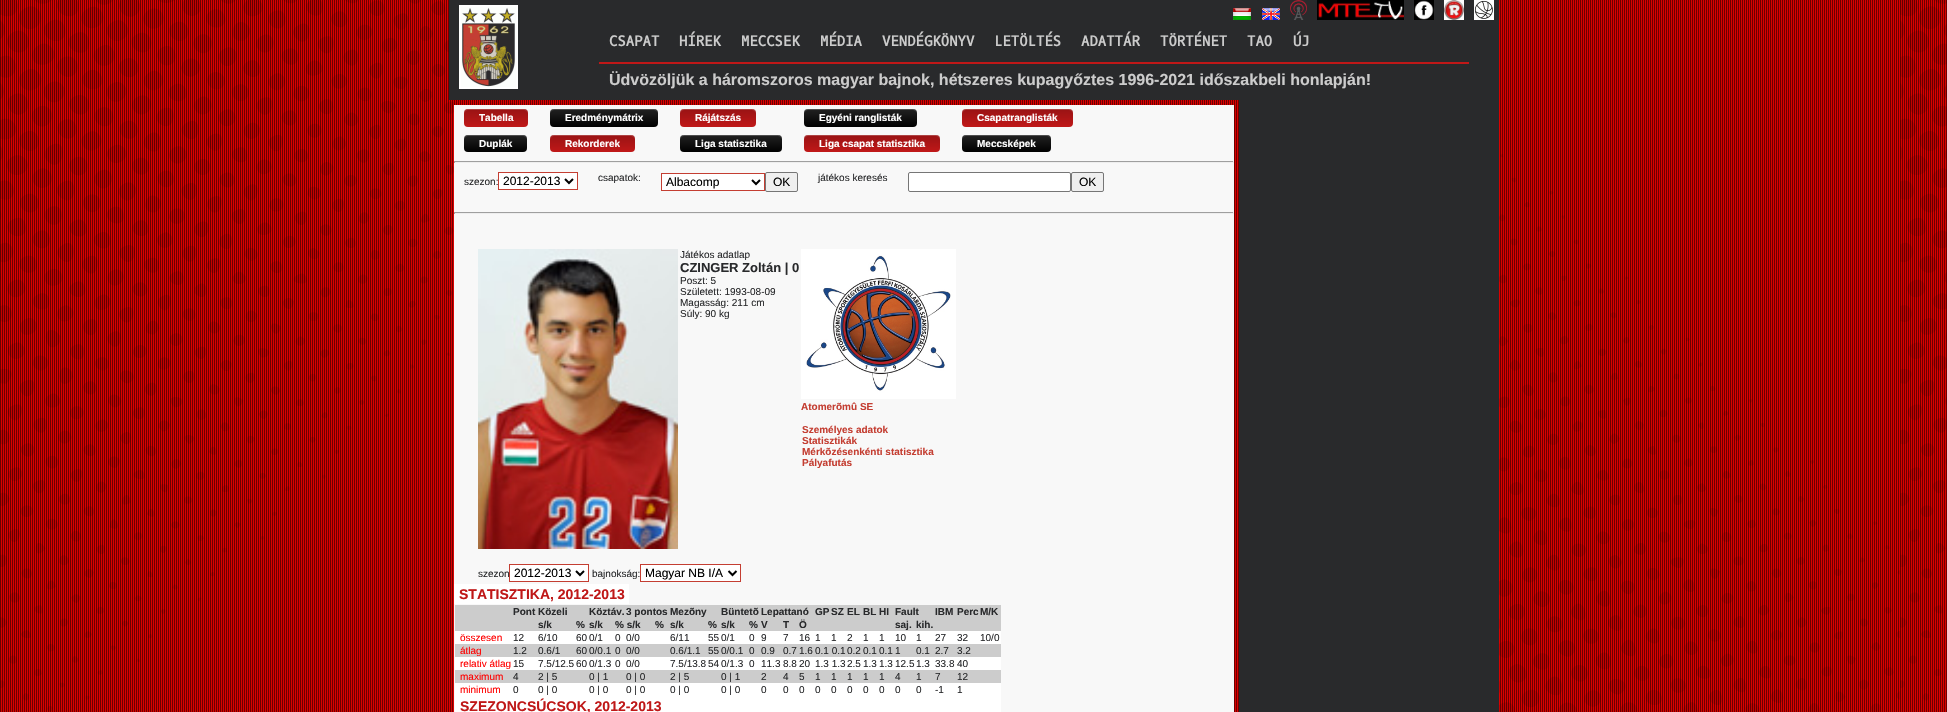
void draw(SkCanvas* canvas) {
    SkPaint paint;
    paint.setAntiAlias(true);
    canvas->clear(0xFFFFFFFF);
    canvas->drawImageRect(SkImages::DeferredFromEncodedData(SkData::MakeFromFileName("img1.png")), SkRect::MakeXYWH(0, 0, 1947, 712), SkSamplingOptions());
    paint.setColor(0xFF292A2C);
    canvas->drawRect(SkRect::MakeXYWH(449, 0, 1050, 100), paint);
    paint.setStyle(SkPaint::kStroke_Style);
    paint.setStrokeWidth(2);
    paint.setColor(0xFFFFFFFF);
    canvas->drawRect(SkRect::MakeXYWH(460, 6, 57, 82), paint);
    canvas->drawImageRect(SkImages::DeferredFromEncodedData(SkData::MakeFromFileName("img2.png")), SkRect::MakeXYWH(461, 7, 55, 80), SkSamplingOptions());
    canvas->drawImageRect(SkImages::DeferredFromEncodedData(SkData::MakeFromFileName("img3.png")), SkRect::MakeXYWH(1233, 8, 18, 12), SkSamplingOptions());
    canvas->drawImageRect(SkImages::DeferredFromEncodedData(SkData::MakeFromFileName("img4.png")), SkRect::MakeXYWH(1262, 8, 18, 12), SkSamplingOptions());
    canvas->drawImageRect(SkImages::DeferredFromEncodedData(SkData::MakeFromFileName("img5.png")), SkRect::MakeXYWH(1290, 0, 17, 20), SkSamplingOptions());
    canvas->drawImageRect(SkImages::DeferredFromEncodedData(SkData::MakeFromFileName("img6.png")), SkRect::MakeXYWH(1317, 0, 87, 20), SkSamplingOptions());
    canvas->drawImageRect(SkImages::DeferredFromEncodedData(SkData::MakeFromFileName("img7.png")), SkRect::MakeXYWH(1414, 0, 20, 20), SkSamplingOptions());
    canvas->drawImageRect(SkImages::DeferredFromEncodedData(SkData::MakeFromFileName("img8.png")), SkRect::MakeXYWH(1444, 0, 20, 20), SkSamplingOptions());
    canvas->drawImageRect(SkImages::DeferredFromEncodedData(SkData::MakeFromFileName("img9.png")), SkRect::MakeXYWH(1474, 0, 20, 20), SkSamplingOptions());
    paint.setStyle(SkPaint::kFill_Style);
    paint.setColor(0xFFC01818);
    canvas->drawRect(SkRect::MakeXYWH(599, 62, 870, 2), paint);
    SkFont font1(fontMgr->matchFamilyStyle("Oxygen Mono", SkFontStyle::Bold()), 14);
    font1.setSubpixel(true);
    paint.setColor(0xFFCCCCCC);
    canvas->drawString("CSAPAT", 609, 46, font1, paint);
    canvas->drawString("HÍREK", 679, 46, font1, paint);
    canvas->drawString("MECCSEK", 741, 46, font1, paint);
    canvas->drawString("MÉDIA", 820, 46, font1, paint);
    canvas->drawString("VENDÉGKÖNYV", 882, 46, font1, paint);
    canvas->drawString("LETÖLTÉS", 994, 46, font1, paint);
    canvas->drawString("ADATTÁR", 1081, 46, font1, paint);
    canvas->drawString("TÖRTÉNET", 1160, 46, font1, paint);
    canvas->drawString("TAO", 1247, 46, font1, paint);
    canvas->drawString("ÚJ", 1293, 46, font1, paint);
    SkFont font2(fontMgr->matchFamilyStyle("Liberation Sans", SkFontStyle::Bold()), 16);
    font2.setSubpixel(true);
    canvas->drawString("Üdvözöljük a háromszoros magyar bajnok, hétszeres kupagyőztes 1996-2021 időszakbeli honlapján!", 609, 85, font2, paint);
    paint.setColor(0xFFF8F8F8);
    canvas->drawRect(SkRect::MakeXYWH(454, 105, 780, 607), paint);
    {
        const SkColor colors[] = {0xFF991314, 0xFFC01818};
        const float stops[] = {0, 1};
        const SkPoint ends[] = {{496, 109}, {496, 127}};
        paint.setShader(SkGradientShader::MakeLinear(ends, colors, stops, 2, SkTileMode::kClamp));
        paint.setAlpha(255);
    }
    canvas->drawRoundRect(SkRect::MakeXYWH(464, 109, 64, 18), 4, 4, paint);
    paint.setShader(nullptr);
    paint.setColor(0x33FFFFFF);
    canvas->drawPath(SkPathBuilder().moveTo(468, 110).lineTo(524, 110).cubicTo(526, 110, 528, 112, 528, 114).cubicTo(528, 107, 520, 109, 515, 109).lineTo(477, 109).cubicTo(472, 109, 464, 107, 464, 114).cubicTo(464, 112, 466, 110, 468, 110).close().detach(), paint);
    SkFont font3(fontMgr->matchFamilyStyle("Liberation Sans", SkFontStyle::Bold()), 10);
    font3.setSubpixel(true);
    paint.setColor(0xFFFFFFFF);
    canvas->drawString("Tabella", 479, 121, font3, paint);
    {
        const SkColor colors[] = {0xFF222222, 0xFF000000};
        const float stops[] = {0, 1};
        const SkPoint ends[] = {{604, 109}, {604, 127}};
        paint.setShader(SkGradientShader::MakeLinear(ends, colors, stops, 2, SkTileMode::kClamp));
        paint.setAlpha(255);
    }
    canvas->drawRoundRect(SkRect::MakeXYWH(550, 109, 108, 18), 4, 4, paint);
    paint.setShader(nullptr);
    paint.setColor(0x33FFFFFF);
    canvas->drawPath(SkPathBuilder().moveTo(554, 110).lineTo(654, 110).cubicTo(656, 110, 658, 112, 658, 114).cubicTo(658, 105, 641, 109, 637, 109).lineTo(571, 109).cubicTo(567, 109, 550, 105, 550, 114).cubicTo(550, 112, 552, 110, 554, 110).close().detach(), paint);
    paint.setColor(0xFFFFFFFF);
    canvas->drawString("Eredménymátrix", 565, 121, font3, paint);
    {
        const SkColor colors[] = {0xFF991314, 0xFFC01818};
        const float stops[] = {0, 1};
        const SkPoint ends[] = {{718, 109}, {718, 127}};
        paint.setShader(SkGradientShader::MakeLinear(ends, colors, stops, 2, SkTileMode::kClamp));
        paint.setAlpha(255);
    }
    canvas->drawRoundRect(SkRect::MakeXYWH(680, 109, 76, 18), 4, 4, paint);
    paint.setShader(nullptr);
    paint.setColor(0x33FFFFFF);
    canvas->drawPath(SkPathBuilder().moveTo(684, 110).lineTo(752, 110).cubicTo(754, 110, 756, 112, 756, 114).cubicTo(756, 106, 746, 109, 741, 109).lineTo(695, 109).cubicTo(690, 109, 680, 106, 680, 114).cubicTo(680, 112, 682, 110, 684, 110).close().detach(), paint);
    paint.setColor(0xFFFFFFFF);
    canvas->drawString("Rájátszás", 695, 121, font3, paint);
    {
        const SkColor colors[] = {0xFF222222, 0xFF000000};
        const float stops[] = {0, 1};
        const SkPoint ends[] = {{861, 109}, {861, 127}};
        paint.setShader(SkGradientShader::MakeLinear(ends, colors, stops, 2, SkTileMode::kClamp));
        paint.setAlpha(255);
    }
    canvas->drawRoundRect(SkRect::MakeXYWH(804, 109, 113, 18), 4, 4, paint);
    paint.setShader(nullptr);
    paint.setColor(0x33FFFFFF);
    canvas->drawPath(SkPathBuilder().moveTo(808, 110).lineTo(913, 110).cubicTo(915, 110, 917, 112, 917, 114).cubicTo(917, 104, 899, 109, 896, 109).lineTo(826, 109).cubicTo(822, 109, 804, 104, 804, 114).cubicTo(804, 112, 806, 110, 808, 110).close().detach(), paint);
    paint.setColor(0xFFFFFFFF);
    canvas->drawString("Egyéni ranglisták", 819, 121, font3, paint);
    {
        const SkColor colors[] = {0xFF991314, 0xFFC01818};
        const float stops[] = {0, 1};
        const SkPoint ends[] = {{1018, 109}, {1018, 127}};
        paint.setShader(SkGradientShader::MakeLinear(ends, colors, stops, 2, SkTileMode::kClamp));
        paint.setAlpha(255);
    }
    canvas->drawRoundRect(SkRect::MakeXYWH(962, 109, 111, 18), 4, 4, paint);
    paint.setShader(nullptr);
    paint.setColor(0x33FFFFFF);
    canvas->drawPath(SkPathBuilder().moveTo(966, 110).lineTo(1069, 110).cubicTo(1071, 110, 1073, 112, 1073, 114).cubicTo(1073, 104, 1055, 109, 1052, 109).lineTo(983, 109).cubicTo(980, 109, 962, 104, 962, 114).cubicTo(962, 112, 964, 110, 966, 110).close().detach(), paint);
    paint.setColor(0xFFFFFFFF);
    canvas->drawString("Csapatranglisták", 977, 121, font3, paint);
    {
        const SkColor colors[] = {0xFF222222, 0xFF000000};
        const float stops[] = {0, 1};
        const SkPoint ends[] = {{496, 135}, {496, 152}};
        paint.setShader(SkGradientShader::MakeLinear(ends, colors, stops, 2, SkTileMode::kClamp));
        paint.setAlpha(255);
    }
    canvas->drawRoundRect(SkRect::MakeXYWH(464, 135, 63, 17), 4, 4, paint);
    paint.setShader(nullptr);
    paint.setColor(0x33FFFFFF);
    canvas->drawPath(SkPathBuilder().moveTo(468, 136).lineTo(523, 136).cubicTo(525, 136, 527, 138, 527, 140).cubicTo(527, 133, 519, 135, 514, 135).lineTo(477, 135).cubicTo(472, 135, 464, 133, 464, 140).cubicTo(464, 138, 466, 136, 468, 136).close().detach(), paint);
    paint.setColor(0xFFFFFFFF);
    canvas->drawString("Duplák", 479, 147, font3, paint);
    {
        const SkColor colors[] = {0xFF991314, 0xFFC01818};
        const float stops[] = {0, 1};
        const SkPoint ends[] = {{593, 135}, {593, 152}};
        paint.setShader(SkGradientShader::MakeLinear(ends, colors, stops, 2, SkTileMode::kClamp));
        paint.setAlpha(255);
    }
    canvas->drawRoundRect(SkRect::MakeXYWH(550, 135, 85, 17), 4, 4, paint);
    paint.setShader(nullptr);
    paint.setColor(0x33FFFFFF);
    canvas->drawPath(SkPathBuilder().moveTo(554, 136).lineTo(631, 136).cubicTo(633, 136, 635, 138, 635, 140).cubicTo(635, 132, 623, 135, 618, 135).lineTo(567, 135).cubicTo(562, 135, 550, 132, 550, 140).cubicTo(550, 138, 552, 136, 554, 136).close().detach(), paint);
    paint.setColor(0xFFFFFFFF);
    canvas->drawString("Rekorderek", 565, 147, font3, paint);
    {
        const SkColor colors[] = {0xFF222222, 0xFF000000};
        const float stops[] = {0, 1};
        const SkPoint ends[] = {{731, 135}, {731, 152}};
        paint.setShader(SkGradientShader::MakeLinear(ends, colors, stops, 2, SkTileMode::kClamp));
        paint.setAlpha(255);
    }
    canvas->drawRoundRect(SkRect::MakeXYWH(680, 135, 102, 17), 4, 4, paint);
    paint.setShader(nullptr);
    paint.setColor(0x33FFFFFF);
    canvas->drawPath(SkPathBuilder().moveTo(684, 136).lineTo(778, 136).cubicTo(780, 136, 782, 138, 782, 140).cubicTo(782, 131, 766, 135, 762, 135).lineTo(700, 135).cubicTo(696, 135, 680, 131, 680, 140).cubicTo(680, 138, 682, 136, 684, 136).close().detach(), paint);
    paint.setColor(0xFFFFFFFF);
    canvas->drawString("Liga statisztika", 695, 147, font3, paint);
    {
        const SkColor colors[] = {0xFF991314, 0xFFC01818};
        const float stops[] = {0, 1};
        const SkPoint ends[] = {{872, 135}, {872, 152}};
        paint.setShader(SkGradientShader::MakeLinear(ends, colors, stops, 2, SkTileMode::kClamp));
        paint.setAlpha(255);
    }
    canvas->drawRoundRect(SkRect::MakeXYWH(804, 135, 136, 17), 4, 4, paint);
    paint.setShader(nullptr);
    paint.setColor(0x33FFFFFF);
    canvas->drawPath(SkPathBuilder().moveTo(808, 136).lineTo(936, 136).cubicTo(938, 136, 940, 138, 940, 140).lineTo(940, 139).cubicTo(940, 137, 938, 135, 936, 135).lineTo(808, 135).cubicTo(806, 135, 804, 137, 804, 139).lineTo(804, 140).cubicTo(804, 138, 806, 136, 808, 136).close().detach(), paint);
    paint.setColor(0xFFFFFFFF);
    canvas->drawString("Liga csapat statisztika", 819, 147, font3, paint);
    {
        const SkColor colors[] = {0xFF222222, 0xFF000000};
        const float stops[] = {0, 1};
        const SkPoint ends[] = {{1007, 135}, {1007, 152}};
        paint.setShader(SkGradientShader::MakeLinear(ends, colors, stops, 2, SkTileMode::kClamp));
        paint.setAlpha(255);
    }
    canvas->drawRoundRect(SkRect::MakeXYWH(962, 135, 89, 17), 4, 4, paint);
    paint.setShader(nullptr);
    paint.setColor(0x33FFFFFF);
    canvas->drawPath(SkPathBuilder().moveTo(966, 136).lineTo(1047, 136).cubicTo(1049, 136, 1051, 138, 1051, 140).cubicTo(1051, 132, 1038, 135, 1034, 135).lineTo(980, 135).cubicTo(975, 135, 962, 132, 962, 140).cubicTo(962, 138, 964, 136, 966, 136).close().detach(), paint);
    paint.setColor(0xFFFFFFFF);
    canvas->drawString("Meccsképek", 977, 147, font3, paint);
    paint.setColor(0xFF9F9F9F);
    canvas->drawRect(SkRect::MakeXYWH(454, 161, 780, 1), paint);
    paint.setColor(0xFFEEEEEE);
    canvas->drawRect(SkRect::MakeXYWH(1233, 161, 1, 2), paint);
    canvas->drawRect(SkRect::MakeXYWH(454, 162, 780, 1), paint);
    paint.setColor(0xFF9F9F9F);
    canvas->drawRect(SkRect::MakeXYWH(454, 161, 1, 2), paint);
    SkFont font4(fontMgr->matchFamilyStyle("Liberation Sans", SkFontStyle::Normal()), 10);
    font4.setSubpixel(true);
    paint.setColor(0xFF292A2C);
    canvas->drawString("szezon:", 464, 185, font4, paint);
    paint.setColor(0xFFFFFFFF);
    canvas->drawRect(SkRect::MakeXYWH(498.5f, 172.5f, 79, 17), paint);
    paint.setStyle(SkPaint::kStroke_Style);
    paint.setStrokeWidth(1);
    paint.setColor(0xFFC43E32);
    canvas->drawRect(SkRect::MakeXYWH(498.5f, 172.5f, 79, 17), paint);
    paint.setStrokeWidth(2);
    paint.setColor(0xFF000000);
    canvas->drawPath(SkPathBuilder().moveTo(565, 179).lineTo(569, 183).lineTo(573, 179).detach(), paint);
    SkFont font5(fontMgr->matchFamilyStyle("Liberation Sans", SkFontStyle::Normal()), 12);
    font5.setSubpixel(true);
    paint.setStyle(SkPaint::kFill_Style);
    canvas->drawString("2012-2013", 503, 185, font5, paint);
    paint.setColor(0xFF292A2C);
    canvas->drawString("csapatok:", 598, 181, font4, paint);
    paint.setColor(0xFFFFFFFF);
    canvas->drawRect(SkRect::MakeXYWH(661.5f, 173.5f, 103, 17), paint);
    paint.setStyle(SkPaint::kStroke_Style);
    paint.setStrokeWidth(1);
    paint.setColor(0xFFC43E32);
    canvas->drawRect(SkRect::MakeXYWH(661.5f, 173.5f, 103, 17), paint);
    paint.setStrokeWidth(2);
    paint.setColor(0xFF000000);
    canvas->drawPath(SkPathBuilder().moveTo(752, 180).lineTo(756, 184).lineTo(760, 180).detach(), paint);
    paint.setStyle(SkPaint::kFill_Style);
    canvas->drawString("Albacomp", 666, 186, font5, paint);
    paint.setColor(0xFFEFEFEF);
    canvas->drawRoundRect(SkRect::MakeXYWH(765.5f, 172.5f, 32, 19), 1.5f, 1.5f, paint);
    paint.setStyle(SkPaint::kStroke_Style);
    paint.setStrokeWidth(1);
    paint.setColor(0xFF767676);
    canvas->drawRoundRect(SkRect::MakeXYWH(765.5f, 172.5f, 32, 19), 1.5f, 1.5f, paint);
    paint.setStyle(SkPaint::kFill_Style);
    paint.setColor(0xFF000000);
    canvas->drawString("OK", 773, 186, font5, paint);
    paint.setColor(0xFF292A2C);
    canvas->drawString("játékos keresés", 818, 181, font4, paint);
    paint.setColor(0xFFFFFFFF);
    canvas->drawRoundRect(SkRect::MakeXYWH(908.5f, 172.5f, 162, 19), 1.5f, 1.5f, paint);
    paint.setStyle(SkPaint::kStroke_Style);
    paint.setColor(0xFF767676);
    canvas->drawRoundRect(SkRect::MakeXYWH(908.5f, 172.5f, 162, 19), 1.5f, 1.5f, paint);
    paint.setStyle(SkPaint::kFill_Style);
    paint.setColor(0xFFEFEFEF);
    canvas->drawRoundRect(SkRect::MakeXYWH(1071.5f, 172.5f, 32, 19), 1.5f, 1.5f, paint);
    paint.setStyle(SkPaint::kStroke_Style);
    paint.setColor(0xFF767676);
    canvas->drawRoundRect(SkRect::MakeXYWH(1071.5f, 172.5f, 32, 19), 1.5f, 1.5f, paint);
    paint.setStyle(SkPaint::kFill_Style);
    paint.setColor(0xFF000000);
    canvas->drawString("OK", 1079, 186, font5, paint);
    paint.setColor(0xFF9F9F9F);
    canvas->drawRect(SkRect::MakeXYWH(454, 212, 780, 1), paint);
    paint.setColor(0xFFEEEEEE);
    canvas->drawRect(SkRect::MakeXYWH(1233, 212, 1, 2), paint);
    canvas->drawRect(SkRect::MakeXYWH(454, 213, 780, 1), paint);
    paint.setColor(0xFF9F9F9F);
    canvas->drawRect(SkRect::MakeXYWH(454, 212, 1, 2), paint);
    canvas->drawImageRect(SkImages::DeferredFromEncodedData(SkData::MakeFromFileName("img10.png")), SkRect::MakeXYWH(478, 249, 200, 300), SkSamplingOptions());
    paint.setColor(0xFF292A2C);
    canvas->drawString("Játékos adatlap", 680, 258, font4, paint);
    SkFont font6(fontMgr->matchFamilyStyle("Liberation Sans", SkFontStyle::Bold()), 13);
    font6.setSubpixel(true);
    canvas->drawString("CZINGER Zoltán | 0", 680, 272, font6, paint);
    canvas->drawString("Poszt: 5", 680, 284, font4, paint);
    canvas->drawString("Született: 1993-08-09", 680, 295, font4, paint);
    canvas->drawString("Magasság: 211 cm", 680, 306, font4, paint);
    canvas->drawString("Súly: 90 kg", 680, 317, font4, paint);
    canvas->drawImageRect(SkImages::DeferredFromEncodedData(SkData::MakeFromFileName("img11.png")), SkRect::MakeXYWH(801, 249, 155, 150), SkSamplingOptions());
    paint.setColor(0xFFC43E32);
    canvas->drawString("Atomerõmû SE", 801, 410, font3, paint);
    canvas->drawString("Személyes adatok", 802, 433, font3, paint);
    canvas->drawString("Statisztikák", 802, 444, font3, paint);
    canvas->drawString("Mérkõzésenkénti statisztika", 802, 455, font3, paint);
    canvas->drawString("Pályafutás", 802, 466, font3, paint);
    paint.setColor(0xFF292A2C);
    canvas->drawString("szezon", 478, 577, font4, paint);
    paint.setColor(0xFFFFFFFF);
    canvas->drawRect(SkRect::MakeXYWH(509.5f, 564.5f, 79, 17), paint);
    paint.setStyle(SkPaint::kStroke_Style);
    paint.setColor(0xFFC43E32);
    canvas->drawRect(SkRect::MakeXYWH(509.5f, 564.5f, 79, 17), paint);
    paint.setStrokeWidth(2);
    paint.setColor(0xFF000000);
    canvas->drawPath(SkPathBuilder().moveTo(576, 571).lineTo(580, 575).lineTo(584, 571).detach(), paint);
    paint.setStyle(SkPaint::kFill_Style);
    canvas->drawString("2012-2013", 514, 577, font5, paint);
    paint.setColor(0xFF292A2C);
    canvas->drawString("bajnokság:", 592, 577, font4, paint);
    paint.setColor(0xFFFFFFFF);
    canvas->drawRect(SkRect::MakeXYWH(640.5f, 564.5f, 100, 17), paint);
    paint.setStyle(SkPaint::kStroke_Style);
    paint.setStrokeWidth(1);
    paint.setColor(0xFFC43E32);
    canvas->drawRect(SkRect::MakeXYWH(640.5f, 564.5f, 100, 17), paint);
    paint.setStrokeWidth(2);
    paint.setColor(0xFF000000);
    canvas->drawPath(SkPathBuilder().moveTo(728.5f, 571).lineTo(732.5f, 575).lineTo(736.5f, 571).detach(), paint);
    paint.setStyle(SkPaint::kFill_Style);
    canvas->drawString("Magyar NB I/A", 645, 577, font5, paint);
    paint.setColor(0xFFFFFFFF);
    canvas->drawRect(SkRect::MakeXYWH(454, 584, 175, 20), paint);
    SkFont font7(fontMgr->matchFamilyStyle("Liberation Sans", SkFontStyle::Bold()), 14);
    font7.setSubpixel(true);
    paint.setColor(0xFFBF1818);
    canvas->drawString("STATISZTIKA, 2012-2013", 459, 599, font7, paint);
    paint.setColor(0xFFCCCCCC);
    canvas->drawRect(SkRect::MakeXYWH(455, 605, 546, 26), paint);
    paint.setColor(0xFF292A2C);
    canvas->drawString("Pont", 513, 615, font3, paint);
    canvas->drawString("Közeli", 538, 615, font3, paint);
    canvas->drawString("Köztáv.", 589, 615, font3, paint);
    canvas->drawString("3 pontos", 626, 615, font3, paint);
    canvas->drawString("Mezõny", 670, 615, font3, paint);
    canvas->drawString("Büntetõ", 721, 615, font3, paint);
    canvas->drawString("Lepattanó", 761, 615, font3, paint);
    canvas->drawString("GP", 815, 615, font3, paint);
    canvas->drawString("SZ", 831, 615, font3, paint);
    canvas->drawString("EL", 847, 615, font3, paint);
    canvas->drawString("BL HI", 863, 615, font3, paint);
    canvas->drawString("Fault", 895, 615, font3, paint);
    canvas->drawString("IBM", 935, 615, font3, paint);
    canvas->drawString("Perc", 957, 615, font3, paint);
    canvas->drawString("M/K", 980, 615, font3, paint);
    canvas->drawString("s/k", 538, 628, font3, paint);
    canvas->drawString("%", 576, 628, font3, paint);
    canvas->drawString("s/k", 589, 628, font3, paint);
    canvas->drawString("% s/k", 615, 628, font3, paint);
    canvas->drawString("%", 655, 628, font3, paint);
    canvas->drawString("s/k", 670, 628, font3, paint);
    canvas->drawString("%", 708, 628, font3, paint);
    canvas->drawString("s/k", 721, 628, font3, paint);
    canvas->drawString("%", 749, 628, font3, paint);
    canvas->drawString("V", 761, 628, font3, paint);
    canvas->drawString("T", 783, 628, font3, paint);
    canvas->drawString("Ö", 799, 628, font3, paint);
    canvas->drawString("saj.", 895, 628, font3, paint);
    canvas->drawString("kih.", 916, 628, font3, paint);
    paint.setColor(0xFFFFFFFF);
    canvas->drawRect(SkRect::MakeXYWH(455, 631, 546, 13), paint);
    paint.setColor(0xFFFF0000);
    canvas->drawString("összesen", 460, 641, font4, paint);
    paint.setColor(0xFF292A2C);
    canvas->drawString("12", 513, 641, font4, paint);
    canvas->drawString("6/10", 538, 641, font4, paint);
    canvas->drawString("60", 576, 641, font4, paint);
    canvas->drawString("0/1", 589, 641, font4, paint);
    canvas->drawString("0", 615, 641, font4, paint);
    canvas->drawString("0/0", 626, 641, font4, paint);
    canvas->drawString("6/11", 670, 641, font4, paint);
    canvas->drawString("55", 708, 641, font4, paint);
    canvas->drawString("0/1", 721, 641, font4, paint);
    canvas->drawString("0", 749, 641, font4, paint);
    canvas->drawString("9", 761, 641, font4, paint);
    canvas->drawString("7", 783, 641, font4, paint);
    canvas->drawString("16", 799, 641, font4, paint);
    canvas->drawString("1", 815, 641, font4, paint);
    canvas->drawString("1", 831, 641, font4, paint);
    canvas->drawString("2", 847, 641, font4, paint);
    canvas->drawString("1", 863, 641, font4, paint);
    canvas->drawString("1", 879, 641, font4, paint);
    canvas->drawString("10", 895, 641, font4, paint);
    canvas->drawString("1", 916, 641, font4, paint);
    canvas->drawString("27", 935, 641, font4, paint);
    canvas->drawString("32", 957, 641, font4, paint);
    canvas->drawString("10/0", 980, 641, font4, paint);
    paint.setColor(0xFFCCCCCC);
    canvas->drawRect(SkRect::MakeXYWH(455, 644, 546, 13), paint);
    paint.setColor(0xFFFF0000);
    canvas->drawString("átlag", 460, 654, font4, paint);
    paint.setColor(0xFF292A2C);
    canvas->drawString("1.2", 513, 654, font4, paint);
    canvas->drawString("0.6/1", 538, 654, font4, paint);
    canvas->drawString("60", 576, 654, font4, paint);
    canvas->drawString("0/0.1", 589, 654, font4, paint);
    canvas->drawString("0", 615, 654, font4, paint);
    canvas->drawString("0/0", 626, 654, font4, paint);
    canvas->drawString("0.6/1.1", 670, 654, font4, paint);
    canvas->drawString("55", 708, 654, font4, paint);
    canvas->drawString("0/0.1", 721, 654, font4, paint);
    canvas->drawString("0", 749, 654, font4, paint);
    canvas->drawString("0.9", 761, 654, font4, paint);
    canvas->drawString("0.7", 783, 654, font4, paint);
    canvas->drawString("1.6", 799, 654, font4, paint);
    canvas->drawString("0.1 0.1", 815, 654, font4, paint);
    canvas->drawString("0.2", 847, 654, font4, paint);
    canvas->drawString("0.1", 863, 654, font4, paint);
    canvas->drawString("0.1", 879, 654, font4, paint);
    canvas->drawString("1", 895, 654, font4, paint);
    canvas->drawString("0.1", 916, 654, font4, paint);
    canvas->drawString("2.7", 935, 654, font4, paint);
    canvas->drawString("3.2", 957, 654, font4, paint);
    paint.setColor(0xFFFFFFFF);
    canvas->drawRect(SkRect::MakeXYWH(455, 657, 546, 13), paint);
    paint.setColor(0xFFFF0000);
    canvas->drawString("relativ átlag", 460, 667, font4, paint);
    paint.setColor(0xFF292A2C);
    canvas->drawString("15", 513, 667, font4, paint);
    canvas->drawString("7.5/12.5", 538, 667, font4, paint);
    canvas->drawString("60", 576, 667, font4, paint);
    canvas->drawString("0/1.3", 589, 667, font4, paint);
    canvas->drawString("0", 615, 667, font4, paint);
    canvas->drawString("0/0", 626, 667, font4, paint);
    canvas->drawString("7.5/13.8", 670, 667, font4, paint);
    canvas->drawString("54", 708, 667, font4, paint);
    canvas->drawString("0/1.3", 721, 667, font4, paint);
    canvas->drawString("0", 749, 667, font4, paint);
    canvas->drawString("11.3", 761, 667, font4, paint);
    canvas->drawString("8.8", 783, 667, font4, paint);
    canvas->drawString("20", 799, 667, font4, paint);
    canvas->drawString("1.3 1.3", 815, 667, font4, paint);
    canvas->drawString("2.5", 847, 667, font4, paint);
    canvas->drawString("1.3", 863, 667, font4, paint);
    canvas->drawString("1.3", 879, 667, font4, paint);
    canvas->drawString("12.5", 895, 667, font4, paint);
    canvas->drawString("1.3", 916, 667, font4, paint);
    canvas->drawString("33.8", 935, 667, font4, paint);
    canvas->drawString("40", 957, 667, font4, paint);
    paint.setColor(0xFFCCCCCC);
    canvas->drawRect(SkRect::MakeXYWH(455, 670, 546, 13), paint);
    paint.setColor(0xFFFF0000);
    canvas->drawString("maximum", 460, 680, font4, paint);
    paint.setColor(0xFF292A2C);
    canvas->drawString("4", 513, 680, font4, paint);
    canvas->drawString("2 | 5", 538, 680, font4, paint);
    canvas->drawString("0 | 1", 589, 680, font4, paint);
    canvas->drawString("0 | 0", 626, 680, font4, paint);
    canvas->drawString("2 | 5", 670, 680, font4, paint);
    canvas->drawString("0 | 1", 721, 680, font4, paint);
    canvas->drawString("2", 761, 680, font4, paint);
    canvas->drawString("4", 783, 680, font4, paint);
    canvas->drawString("5", 799, 680, font4, paint);
    canvas->drawString("1", 815, 680, font4, paint);
    canvas->drawString("1", 831, 680, font4, paint);
    canvas->drawString("1", 847, 680, font4, paint);
    canvas->drawString("1", 863, 680, font4, paint);
    canvas->drawString("1", 879, 680, font4, paint);
    canvas->drawString("4", 895, 680, font4, paint);
    canvas->drawString("1", 916, 680, font4, paint);
    canvas->drawString("7", 935, 680, font4, paint);
    canvas->drawString("12", 957, 680, font4, paint);
    paint.setColor(0xFFFFFFFF);
    canvas->drawRect(SkRect::MakeXYWH(455, 683, 546, 29), paint);
    paint.setColor(0xFFFF0000);
    canvas->drawString("minimum", 460, 693, font4, paint);
    paint.setColor(0xFF292A2C);
    canvas->drawString("0", 513, 693, font4, paint);
    canvas->drawString("0 | 0", 538, 693, font4, paint);
    canvas->drawString("0 | 0", 589, 693, font4, paint);
    canvas->drawString("0 | 0", 626, 693, font4, paint);
    canvas->drawString("0 | 0", 670, 693, font4, paint);
    canvas->drawString("0 | 0", 721, 693, font4, paint);
    canvas->drawString("0", 761, 693, font4, paint);
    canvas->drawString("0", 783, 693, font4, paint);
    canvas->drawString("0", 799, 693, font4, paint);
    canvas->drawString("0", 815, 693, font4, paint);
    canvas->drawString("0", 831, 693, font4, paint);
    canvas->drawString("0", 847, 693, font4, paint);
    canvas->drawString("0", 863, 693, font4, paint);
    canvas->drawString("0", 879, 693, font4, paint);
    canvas->drawString("0", 895, 693, font4, paint);
    canvas->drawString("0", 916, 693, font4, paint);
    canvas->drawString("-1", 935, 693, font4, paint);
    canvas->drawString("1", 957, 693, font4, paint);
    paint.setColor(0xFFBF1818);
    canvas->drawString("SZEZONCSÚCSOK, 2012-2013", 460, 711, font7, paint);
    paint.setColor(0xFF292A2C);
    canvas->drawRect(SkRect::MakeXYWH(1239, 100, 260, 612), paint);
}
